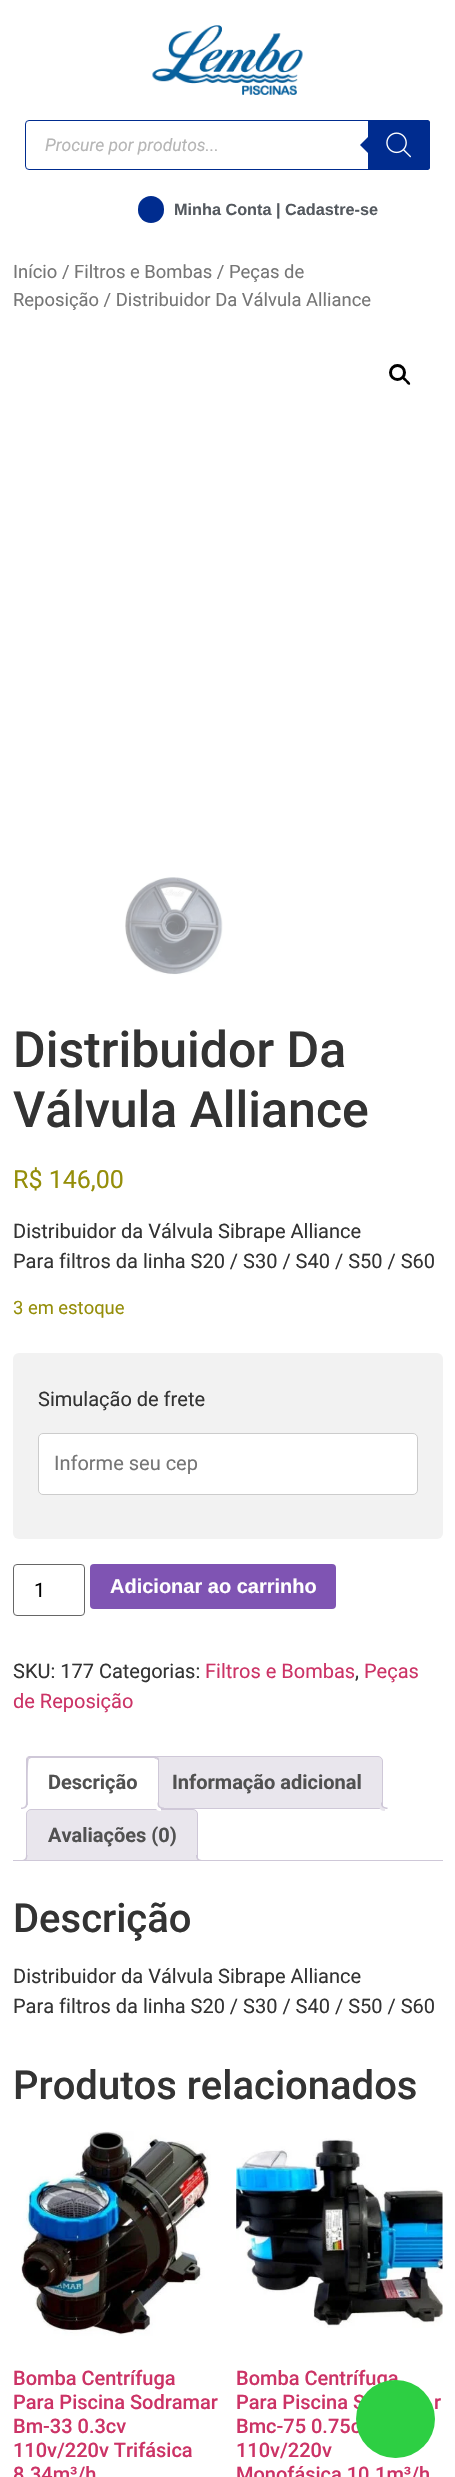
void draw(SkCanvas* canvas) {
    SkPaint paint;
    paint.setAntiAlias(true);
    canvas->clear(0xFFFFFFFF);
    canvas->drawImageRect(SkImages::DeferredFromEncodedData(SkData::MakeFromFileName("img1.png")), SkRect::MakeXYWH(152, 25, 151, 70), SkSamplingOptions());
    paint.setStyle(SkPaint::kStroke_Style);
    paint.setStrokeWidth(1);
    paint.setColor(0xFF002C8F);
    canvas->drawRoundRect(SkRect::MakeXYWH(25.5f, 120.5f, 404, 49), 3.5f, 3.5f, paint);
    SkFont font1(fontMgr->matchFamilyStyle("Roboto", SkFontStyle::Italic()), 17.5f);
    font1.setSubpixel(true);
    paint.setStyle(SkPaint::kFill_Style);
    paint.setColor(0xFFB6B6B6);
    canvas->drawString("Procure por produtos...", 45, 151, font1, paint);
    paint.setColor(0xFF002C8F);
    canvas->drawPath(SkPathBuilder().moveTo(368, 120).lineTo(427.5f, 120).cubicTo(429, 120, 430, 121, 430, 122.5f).lineTo(430, 167.5f).cubicTo(430, 169, 429, 170, 427.5f, 170).lineTo(368, 170).close().detach(), paint);
    canvas->drawPath(SkPathBuilder().moveTo(370, 135).lineTo(370, 155).lineTo(360, 145).close().detach(), paint);
    canvas->drawImageRect(SkImages::DeferredFromEncodedData(SkData::MakeFromFileName("img2.png")), SkRect::MakeXYWH(386, 132, 25, 26), SkSamplingOptions());
    canvas->drawRoundRect(SkRect::MakeXYWH(138, 196, 26, 27), 13, 13, paint);
    SkFont font2(fontMgr->matchFamilyStyle("Liberation Sans", SkFontStyle::Bold()), 16.25f);
    font2.setSubpixel(true);
    paint.setColor(0xFF54595F);
    canvas->drawString("Minha Conta | Cadastre-se", 174, 215, font2, paint);
    SkFont font3(fontMgr->matchFamilyStyle("Roboto", SkFontStyle::Normal()), 18.4f);
    font3.setSubpixel(true);
    paint.setColor(0xFF767676);
    canvas->drawString("Início / Filtros e Bombas / Peças de", 13, 278, font3, paint);
    canvas->drawString("Reposição / Distribuidor Da Válvula Alliance", 13, 306, font3, paint);
    paint.setStyle(SkPaint::kStroke_Style);
    paint.setStrokeWidth(3);
    paint.setColor(0xFF000000);
    canvas->drawCircle(397.5f, 372.5f, 7, paint);
    paint.setStyle(SkPaint::kFill_Style);
    canvas->drawPath(SkPathBuilder().moveTo(402.5f, 377.5f).cubicTo(404, 376, 406.5f, 379, 407, 380).cubicTo(408, 380.5f, 411, 383, 410, 384.5f).cubicTo(408.5f, 386, 406, 382.5f, 405.5f, 381.5f).cubicTo(404.5f, 381, 401.5f, 378.5f, 402.5f, 377.5f).close().detach(), paint);
    canvas->drawImageRect(SkImages::DeferredFromEncodedData(SkData::MakeFromFileName("img3.png")), SkRect::MakeXYWH(125, 877, 98, 98), SkSamplingOptions());
    SkFont font4(fontMgr->matchFamilyStyle("Roboto", SkFontStyle(500, SkFontStyle::kNormal_Width, SkFontStyle::kUpright_Slant)), 50);
    font4.setSubpixel(true);
    paint.setColor(0xFF333333);
    canvas->drawString("Distribuidor Da", 13, 1067, font4, paint);
    canvas->drawString("Válvula Alliance", 13, 1127, font4, paint);
    SkFont font5(fontMgr->matchFamilyStyle("Roboto", SkFontStyle::Normal()), 25);
    font5.setSubpixel(true);
    paint.setColor(0xFF958E09);
    canvas->drawString("R$ 146,00", 13, 1188, font5, paint);
    SkFont font6(fontMgr->matchFamilyStyle("Roboto", SkFontStyle::Normal()), 20);
    font6.setSubpixel(true);
    paint.setColor(0xFF333333);
    canvas->drawString("Distribuidor da Válvula Sibrape Alliance", 13, 1238, font6, paint);
    canvas->drawString("Para filtros da linha S20 / S30 / S40 / S50 / S60", 13, 1268, font6, paint);
    paint.setColor(0xFF958E09);
    canvas->drawString("3 em estoque", 13, 1314, font3, paint);
    paint.setColor(0xFFF2F2F2);
    canvas->drawRoundRect(SkRect::MakeXYWH(13, 1353, 430, 186), 6, 6, paint);
    paint.setColor(0xFF333333);
    canvas->drawString("Simulação de frete", 38, 1406, font6, paint);
    paint.setColor(0xFFFFFFFF);
    canvas->drawRoundRect(SkRect::MakeXYWH(38.5f, 1433.5f, 379, 61), 4.5f, 4.5f, paint);
    paint.setStyle(SkPaint::kStroke_Style);
    paint.setStrokeWidth(1);
    paint.setColor(0xFFCCCCCC);
    canvas->drawRoundRect(SkRect::MakeXYWH(38.5f, 1433.5f, 379, 61), 4.5f, 4.5f, paint);
    paint.setStyle(SkPaint::kFill_Style);
    paint.setColor(0xFF767676);
    canvas->drawString("Informe seu cep", 54, 1470, font6, paint);
    paint.setStyle(SkPaint::kStroke_Style);
    paint.setColor(0xFF666666);
    canvas->drawRoundRect(SkRect::MakeXYWH(13.5f, 1564.5f, 71, 51), 3.5f, 3.5f, paint);
    paint.setStyle(SkPaint::kFill_Style);
    paint.setColor(0xFF000000);
    canvas->drawString("1", 34, 1597, font6, paint);
    paint.setColor(0xFF7F54B3);
    canvas->drawRoundRect(SkRect::MakeXYWH(90, 1564, 246, 45), 4, 4, paint);
    SkFont font7(fontMgr->matchFamilyStyle("Liberation Sans", SkFontStyle::Bold()), 20);
    font7.setSubpixel(true);
    paint.setColor(0xFFFFFFFF);
    canvas->drawString("Adicionar ao carrinho", 110, 1593, font7, paint);
    paint.setColor(0xFF333333);
    canvas->drawString("SKU: 177 Categorias:", 13, 1678, font6, paint);
    paint.setColor(0xFFCC3366);
    canvas->drawString("Filtros e Bombas", 205, 1678, font6, paint);
    paint.setColor(0xFF333333);
    canvas->drawString(",", 355, 1678, font6, paint);
    paint.setColor(0xFFCC3366);
    canvas->drawString("Peças", 364, 1678, font6, paint);
    canvas->drawString("de Reposição", 13, 1708, font6, paint);
    paint.setColor(0xFFE9E6ED);
    canvas->drawPath(SkPathBuilder().moveTo(156, 1756.5f).lineTo(378, 1756.5f).cubicTo(380.5f, 1756.5f, 382.5f, 1758.5f, 382.5f, 1761).lineTo(382.5f, 1808.5f).lineTo(151.5f, 1808.5f).lineTo(151.5f, 1761).cubicTo(151.5f, 1758.5f, 153.5f, 1756.5f, 156, 1756.5f).close().detach(), paint);
    paint.setStyle(SkPaint::kStroke_Style);
    paint.setColor(0xFFCFC8D8);
    canvas->drawPath(SkPathBuilder().moveTo(156, 1756.5f).lineTo(378, 1756.5f).cubicTo(380.5f, 1756.5f, 382.5f, 1758.5f, 382.5f, 1761).lineTo(382.5f, 1808.5f).lineTo(151.5f, 1808.5f).lineTo(151.5f, 1761).cubicTo(151.5f, 1758.5f, 153.5f, 1756.5f, 156, 1756.5f).close().detach(), paint);
    paint.setStyle(SkPaint::kFill_Style);
    paint.setColor(0xFFFFFFFF);
    canvas->drawPath(SkPathBuilder().moveTo(31, 1756).lineTo(154, 1756).cubicTo(157, 1756, 159, 1758, 159, 1761).lineTo(159, 1809).lineTo(26, 1809).lineTo(26, 1761).cubicTo(26, 1758, 28, 1756, 31, 1756).close().detach(), paint);
    paint.setColor(0xFFCFC8D8);
    canvas->drawPath(SkPathBuilder().moveTo(31, 1758).lineTo(29, 1759).lineTo(27, 1757).lineTo(29, 1756).lineTo(156, 1756).lineTo(158, 1757).lineTo(156, 1759).lineTo(154, 1758).close().detach(), paint);
    canvas->drawPath(SkPathBuilder().moveTo(158, 1757).lineTo(159, 1759).lineTo(159, 1809).lineTo(158, 1808).lineTo(158, 1760).lineTo(156, 1759).close().detach(), paint);
    paint.setColor(0xFFFFFFFF);
    canvas->drawPath(SkPathBuilder().moveTo(159, 1809).lineTo(158, 1808).lineTo(28, 1808).lineTo(28, 1807).lineTo(26, 1809).close().detach(), paint);
    paint.setColor(0xFFCFC8D8);
    canvas->drawPath(SkPathBuilder().moveTo(26, 1809).lineTo(26, 1759).lineTo(27, 1757).lineTo(29, 1759).cubicTo(27, 1761, 28, 1801, 28, 1807).close().detach(), paint);
    SkFont font8(fontMgr->matchFamilyStyle("Roboto", SkFontStyle::Bold()), 20);
    font8.setSubpixel(true);
    paint.setColor(0xFF515151);
    canvas->drawString("Descrição", 48, 1789, font8, paint);
    paint.setColor(0xFFE9E6ED);
    canvas->drawPath(SkPathBuilder().moveTo(31, 1809.5f).lineTo(193, 1809.5f).cubicTo(195.5f, 1809.5f, 197.5f, 1811.5f, 197.5f, 1814).lineTo(197.5f, 1860.5f).lineTo(26.5f, 1860.5f).lineTo(26.5f, 1814).cubicTo(26.5f, 1811.5f, 28.5f, 1809.5f, 31, 1809.5f).close().detach(), paint);
    paint.setStyle(SkPaint::kStroke_Style);
    paint.setColor(0xFFCFC8D8);
    canvas->drawPath(SkPathBuilder().moveTo(31, 1809.5f).lineTo(193, 1809.5f).cubicTo(195.5f, 1809.5f, 197.5f, 1811.5f, 197.5f, 1814).lineTo(197.5f, 1860.5f).lineTo(26.5f, 1860.5f).lineTo(26.5f, 1814).cubicTo(26.5f, 1811.5f, 28.5f, 1809.5f, 31, 1809.5f).close().detach(), paint);
    paint.setStyle(SkPaint::kFill_Style);
    paint.setColor(0xFFFFFFFF);
    canvas->drawPath(SkPathBuilder().moveTo(24, 1808.5f).lineTo(24, 1811).cubicTo(28, 1811, 30, 1809, 30, 1805).lineTo(27.5f, 1805).cubicTo(27, 1806.5f, 25.5f, 1808, 24, 1808.5f).close().detach(), paint);
    paint.setColor(0xFFCFC8D8);
    canvas->drawPath(SkPathBuilder(SkPathFillType::kEvenOdd).moveTo(21, 1802.5f).lineTo(27.5f, 1802.5f).cubicTo(27.5f, 1807, 25.5f, 1809, 21, 1809).close().moveTo(21, 1802.5f).lineTo(26, 1802.5f).cubicTo(26, 1806, 25, 1807.5f, 21, 1807.5f).close().detach(), paint);
    paint.setColor(0xFFFFFFFF);
    canvas->drawPath(SkPathBuilder().moveTo(155, 1805).cubicTo(155, 1809, 157, 1811, 161, 1811).lineTo(161, 1808.5f).cubicTo(159.5f, 1808, 158, 1806.5f, 157.5f, 1805).close().detach(), paint);
    paint.setColor(0xFFCFC8D8);
    canvas->drawPath(SkPathBuilder(SkPathFillType::kEvenOdd).moveTo(157.5f, 1802.5f).lineTo(164, 1802.5f).lineTo(164, 1809).cubicTo(160.5f, 1809, 157.5f, 1807.5f, 157.5f, 1804).close().moveTo(159, 1802.5f).lineTo(164, 1802.5f).lineTo(164, 1807.5f).cubicTo(161.5f, 1807.5f, 159, 1806.5f, 159, 1804).close().detach(), paint);
    paint.setColor(0xFF515151);
    canvas->drawString("Informação adicional", 172, 1789, font8, paint);
    paint.setColor(0xFFE9E6ED);
    canvas->drawPath(SkPathBuilder().moveTo(379, 1805).cubicTo(379, 1809, 381, 1811, 385, 1811).lineTo(385, 1808.5f).cubicTo(383, 1808, 382, 1807, 381.5f, 1805).close().detach(), paint);
    paint.setColor(0xFFCFC8D8);
    canvas->drawPath(SkPathBuilder(SkPathFillType::kEvenOdd).moveTo(381, 1802.5f).lineTo(387.5f, 1802.5f).lineTo(387.5f, 1809).cubicTo(384.5f, 1809, 381, 1807.5f, 381, 1804).close().moveTo(382.5f, 1802.5f).lineTo(387.5f, 1802.5f).lineTo(387.5f, 1807.5f).cubicTo(385, 1807.5f, 382.5f, 1806.5f, 382.5f, 1804).close().detach(), paint);
    paint.setColor(0xFF515151);
    canvas->drawString("Avaliações (0)", 48, 1842, font8, paint);
    canvas->save();
    canvas->clipRect(SkRect::MakeXYWH(13, 1756, 430, 105));
    paint.setColor(0xFFE9E6ED);
    canvas->drawPath(SkPathBuilder().moveTo(24, 1861).lineTo(24, 1864).cubicTo(28, 1864, 30, 1862, 30, 1858).lineTo(27, 1858).cubicTo(26.5f, 1859.5f, 25.5f, 1860.5f, 24, 1861).close().detach(), paint);
    canvas->restore();
    paint.setColor(0xFFCFC8D8);
    canvas->drawPath(SkPathBuilder(SkPathFillType::kEvenOdd).moveTo(21, 1855).lineTo(27.5f, 1855).cubicTo(27.5f, 1859.5f, 25.5f, 1861, 21, 1861).close().moveTo(21, 1855).lineTo(26, 1855).cubicTo(26, 1858.5f, 25, 1860, 21, 1860).close().detach(), paint);
    canvas->save();
    canvas->clipRect(SkRect::MakeXYWH(13, 1756, 430, 105));
    paint.setColor(0xFFE9E6ED);
    canvas->drawPath(SkPathBuilder().moveTo(194, 1858).cubicTo(194, 1862, 196, 1864, 200, 1864).lineTo(200, 1861).cubicTo(198.5f, 1860.5f, 197, 1859.5f, 196.5f, 1858).close().detach(), paint);
    canvas->restore();
    paint.setColor(0xFFCFC8D8);
    canvas->drawPath(SkPathBuilder(SkPathFillType::kEvenOdd).moveTo(196, 1855).lineTo(202.5f, 1855).lineTo(202.5f, 1861).cubicTo(199.5f, 1861, 196, 1860, 196, 1856).close().moveTo(197.5f, 1855).lineTo(202.5f, 1855).lineTo(202.5f, 1860).cubicTo(200, 1860, 197.5f, 1859, 197.5f, 1856).close().detach(), paint);
    canvas->drawRect(SkRect::MakeXYWH(13, 1860, 430, 1), paint);
    SkFont font9(fontMgr->matchFamilyStyle("Roboto", SkFontStyle(500, SkFontStyle::kNormal_Width, SkFontStyle::kUpright_Slant)), 40);
    font9.setSubpixel(true);
    paint.setColor(0xFF333333);
    canvas->drawString("Descrição", 13, 1932, font9, paint);
    canvas->drawString("Distribuidor da Válvula Sibrape Alliance", 13, 1983, font6, paint);
    canvas->drawString("Para filtros da linha S20 / S30 / S40 / S50 / S60", 13, 2013, font6, paint);
    canvas->drawString("Produtos relacionados", 13, 2099, font9, paint);
    canvas->drawImageRect(SkImages::DeferredFromEncodedData(SkData::MakeFromFileName("img4.png")), SkRect::MakeXYWH(21, 2131, 190, 205), SkSamplingOptions());
    SkFont font10(fontMgr->matchFamilyStyle("Roboto", SkFontStyle(500, SkFontStyle::kNormal_Width, SkFontStyle::kUpright_Slant)), 20);
    font10.setSubpixel(true);
    paint.setColor(0xFFCC3366);
    canvas->drawString("Bomba Centrífuga", 13, 2385, font10, paint);
    canvas->drawString("Para Piscina Sodramar", 13, 2409, font10, paint);
    canvas->drawString("Bm-33 0.3cv", 13, 2433, font10, paint);
    canvas->drawString("110v/220v Trifásica", 13, 2457, font10, paint);
    canvas->drawString("8.34m³/h", 13, 2481, font10, paint);
    canvas->drawImageRect(SkImages::DeferredFromEncodedData(SkData::MakeFromFileName("img5.png")), SkRect::MakeXYWH(236, 2138, 207, 190), SkSamplingOptions());
    canvas->drawString("Bomba Centrífuga", 236, 2385, font10, paint);
    canvas->drawString("Para Piscina S", 236, 2409, font10, paint);
    canvas->drawString("r", 434, 2409, font10, paint);
    canvas->drawString("Bmc-75 0.75c", 236, 2433, font10, paint);
    canvas->drawString("110v/220v", 236, 2457, font10, paint);
    canvas->drawString("Monofásica 10.1m³/h", 236, 2481, font10, paint);
    paint.setColor(0xFF2DCF43);
    canvas->drawRoundRect(SkRect::MakeXYWH(356, 2380, 79, 78), 39, 39, paint);
}
